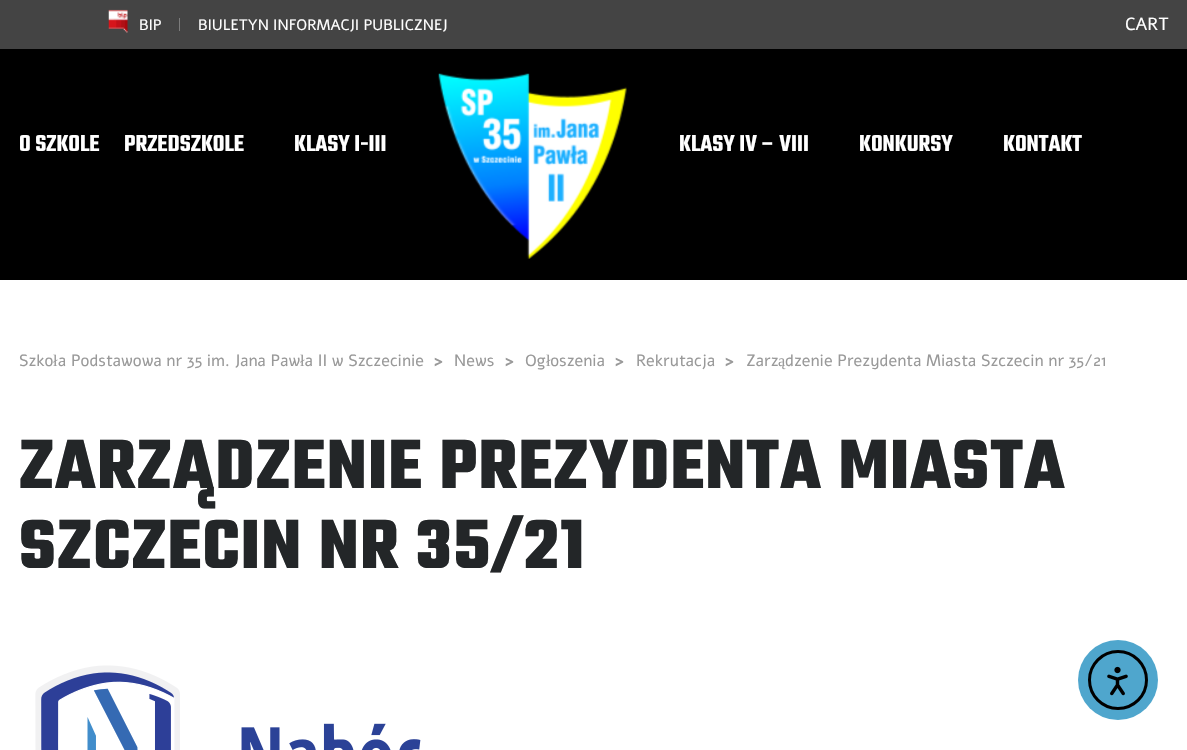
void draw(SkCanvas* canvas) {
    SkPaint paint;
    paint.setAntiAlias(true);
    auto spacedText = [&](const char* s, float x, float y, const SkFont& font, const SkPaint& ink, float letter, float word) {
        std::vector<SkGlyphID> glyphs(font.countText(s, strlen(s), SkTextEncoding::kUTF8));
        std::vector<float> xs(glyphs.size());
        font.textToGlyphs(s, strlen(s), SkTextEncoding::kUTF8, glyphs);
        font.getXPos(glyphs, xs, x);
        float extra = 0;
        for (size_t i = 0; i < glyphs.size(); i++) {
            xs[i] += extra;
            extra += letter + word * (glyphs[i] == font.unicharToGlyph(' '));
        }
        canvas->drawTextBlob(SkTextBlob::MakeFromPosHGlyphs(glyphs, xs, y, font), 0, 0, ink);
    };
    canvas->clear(0xFFFFFFFF);
    paint.setColor(0xFF444444);
    canvas->drawRect(SkRect::MakeXYWH(0, 0, 1187, 49), paint);
    canvas->drawImageRect(SkImages::DeferredFromEncodedData(SkData::MakeFromFileName("img1.png")), SkRect::MakeXYWH(108, 9, 20, 24), SkSamplingOptions());
    SkFont font1(fontMgr->matchFamilyStyle("Alef", SkFontStyle::Normal()), 15);
    font1.setSubpixel(true);
    paint.setColor(0xFFFFFFFF);
    canvas->drawString("BIP", 139, 30, font1, paint);
    paint.setColor(0xFF7C7C7C);
    canvas->drawRect(SkRect::MakeXYWH(179, 18, 1, 13), paint);
    paint.setColor(0xFFFFFFFF);
    canvas->drawString("BIULETYN INFORMACJI PUBLICZNEJ", 198, 30, font1, paint);
    SkFont font2(fontMgr->matchFamilyStyle("Alef", SkFontStyle::Normal()), 17.5f);
    font2.setSubpixel(true);
    canvas->drawString("CART", 1125, 30, font2, paint);
    paint.setColor(0xFF000000);
    canvas->drawRect(SkRect::MakeXYWH(0, 49, 1187, 231), paint);
    SkFont font3(fontMgr->matchFamilyStyle("Teko", SkFontStyle(600, SkFontStyle::kNormal_Width, SkFontStyle::kUpright_Slant)), 25);
    font3.setSubpixel(true);
    paint.setColor(0xFFFFFFFF);
    canvas->drawString("O SZKOLE", 19, 151, font3, paint);
    canvas->drawString("PRZEDSZKOLE", 124, 151, font3, paint);
    canvas->drawString("KLASY I-III", 294, 151, font3, paint);
    canvas->drawImageRect(SkImages::DeferredFromEncodedData(SkData::MakeFromFileName("img2.png")), SkRect::MakeXYWH(438, 73, 189, 186), SkSamplingOptions());
    canvas->drawString("KLASY IV – VIII", 679, 151, font3, paint);
    canvas->drawString("KONKURSY", 859, 151, font3, paint);
    canvas->drawString("KONTAKT", 1003, 151, font3, paint);
    SkFont font4(fontMgr->matchFamilyStyle("Alef", SkFontStyle::Normal()), 16.25f);
    font4.setSubpixel(true);
    paint.setColor(0xFF999999);
    canvas->drawString("Szko a Podstawowa nr 35 im. Jana Paw a II w Szczecinie", 19, 366, font4, paint);
    SkFont font5(fontMgr->matchFamilyStyle("Liberation Serif", SkFontStyle::Normal()), 16.25f);
    font5.setSubpixel(true);
    canvas->drawString("ł", 53, 366, font5, paint);
    canvas->drawString("ł", 300, 366, font5, paint);
    canvas->drawString("News", 454, 366, font4, paint);
    canvas->drawString("Og oszenia", 525, 366, font4, paint);
    SkFont font6(fontMgr->matchFamilyStyle("Alef", SkFontStyle::Bold()), 16.25f);
    font6.setSubpixel(true);
    spacedText(">", 434, 366, font6, paint, 1, 0);
    spacedText(">", 505, 366, font6, paint, 1, 0);
    canvas->drawString("ł", 546, 366, font5, paint);
    spacedText(">", 615, 366, font6, paint, 1, 0);
    canvas->drawString("Rekrutacja", 636, 366, font4, paint);
    spacedText(">", 725, 366, font6, paint, 1, 0);
    canvas->drawString("Zarz", 746, 366, font4, paint);
    canvas->drawString("ą", 778, 366, font5, paint);
    canvas->drawString("dzenie Prezydenta Miasta Szczecin nr 35/21", 785, 366, font4, paint);
    SkFont font7(fontMgr->matchFamilyStyle("Teko", SkFontStyle::Bold()), 75);
    font7.setSubpixel(true);
    paint.setColor(0xFF232628);
    spacedText("ZARZĄDZENIE PREZYDENTA MIASTA", 19, 488, font7, paint, 1.25f, 0);
    spacedText("SZCZECIN NR 35/21", 19, 568, font7, paint, 1.25f, 0);
    canvas->drawImageRect(SkImages::DeferredFromEncodedData(SkData::MakeFromFileName("img3.png")), SkRect::MakeXYWH(35, 665, 386, 85), SkSamplingOptions());
    paint.setColor(0xFF4FA6CD);
    canvas->drawCircle(1118, 680, 40, paint);
    paint.setStyle(SkPaint::kStroke_Style);
    paint.setStrokeWidth(3);
    paint.setColor(0xFF000000);
    canvas->drawCircle(1118, 680, 28.5f, paint);
    canvas->drawImageRect(SkImages::DeferredFromEncodedData(SkData::MakeFromFileName("img4.png")), SkRect::MakeXYWH(1107, 666, 21, 30), SkSamplingOptions());
}
